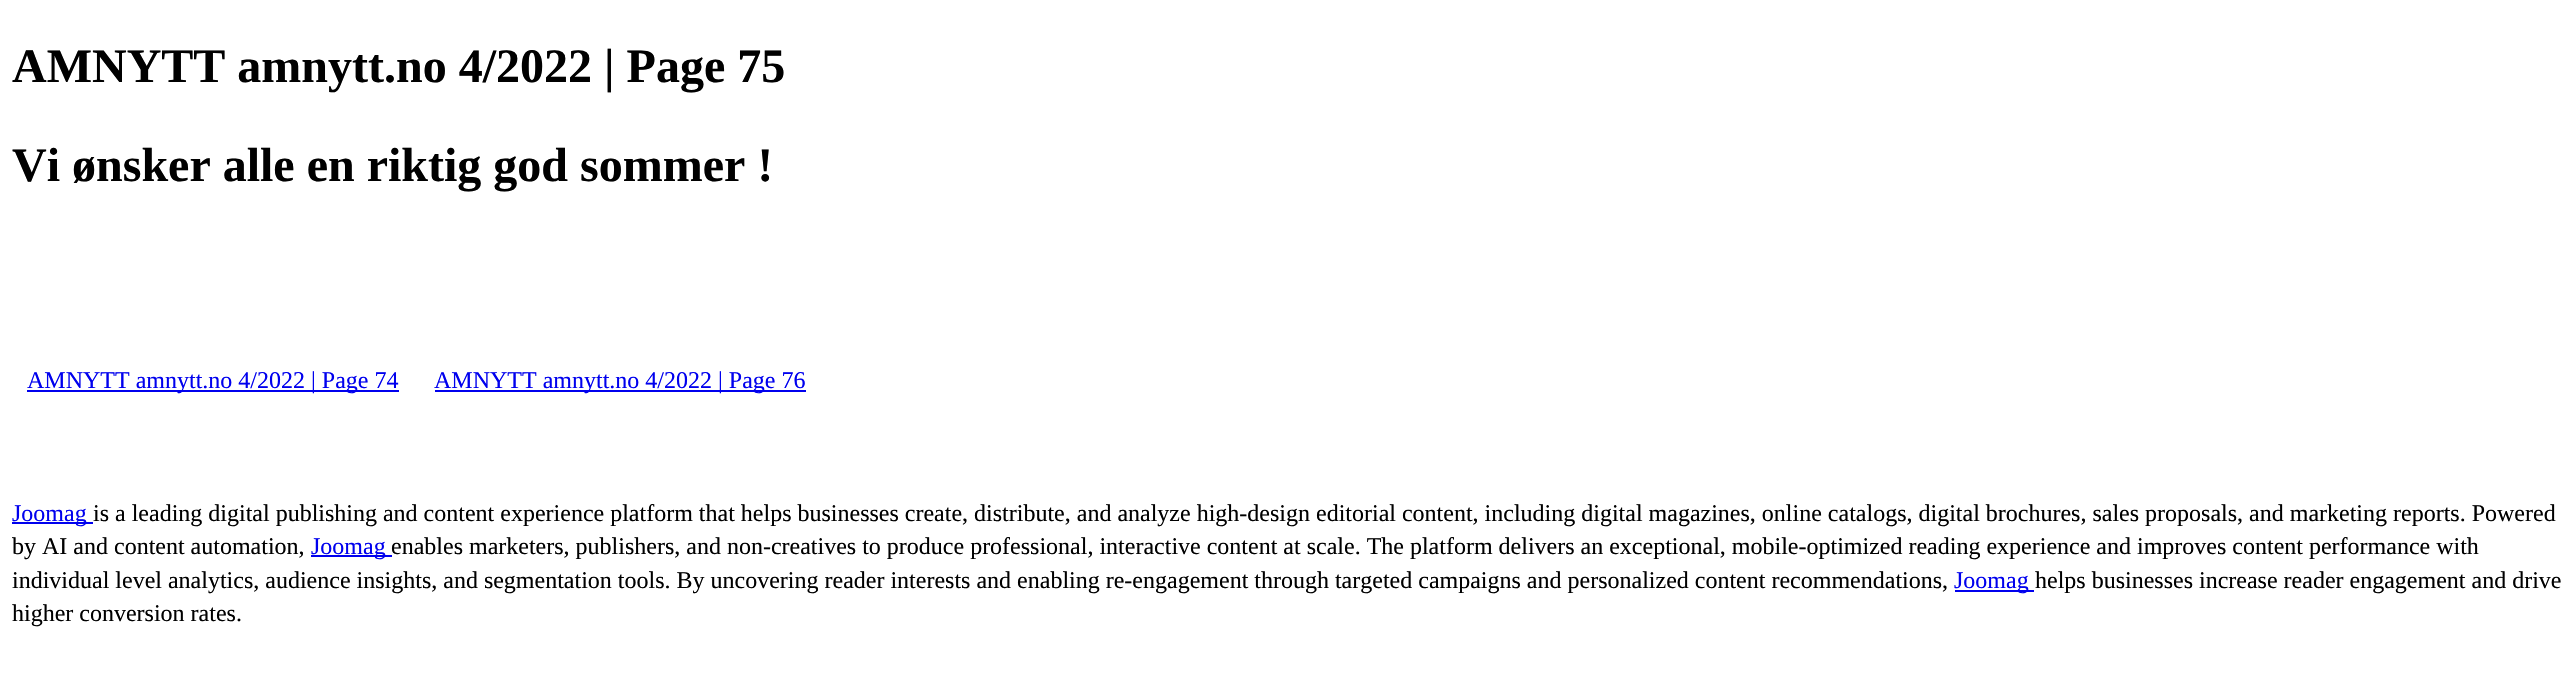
void draw(SkCanvas* canvas) {
    SkPaint paint;
    paint.setAntiAlias(true);
    canvas->clear(0xFFFFFFFF);
    SkFont font1(fontMgr->matchFamilyStyle("Liberation Serif", SkFontStyle::Bold()), 48);
    font1.setSubpixel(true);
    paint.setColor(0xFF000000);
    canvas->drawString("AMNYTT amnytt.no 4/2022 | Page 75", 12, 82, font1, paint);
    canvas->drawString("Vi ønsker alle en riktig god sommer !", 12, 181, font1, paint);
    paint.setColor(0xFF0000EE);
    canvas->drawRect(SkRect::MakeXYWH(27, 390, 372, 2), paint);
    SkFont font2(fontMgr->matchFamilyStyle("Liberation Serif", SkFontStyle::Normal()), 24);
    font2.setSubpixel(true);
    canvas->drawString("AMNYTT amnytt.no 4/2022 | Page 74", 27, 388, font2, paint);
    canvas->drawRect(SkRect::MakeXYWH(435, 390, 371, 2), paint);
    canvas->drawString("AMNYTT amnytt.no 4/2022 | Page 76", 434, 388, font2, paint);
    canvas->drawRect(SkRect::MakeXYWH(12, 522, 81, 2), paint);
    canvas->drawString("Joomag", 12, 521, font2, paint);
    paint.setColor(0xFF000000);
    canvas->drawString("is a leading digital publishing and content experience platform that helps businesses create, distribute, and analyze high-design editorial content, including digital magazines, online catalogs, digital brochures, sales proposals, and marketing reports. Powered", 93, 521, font2, paint);
    canvas->drawString("by AI and content automation,", 12, 554, font2, paint);
    paint.setColor(0xFF0000EE);
    canvas->drawRect(SkRect::MakeXYWH(311, 555, 81, 2), paint);
    canvas->drawString("Joomag", 311, 554, font2, paint);
    paint.setColor(0xFF000000);
    canvas->drawString("enables marketers, publishers, and non-creatives to produce professional, interactive content at scale. The platform delivers an exceptional, mobile-optimized reading experience and improves content performance with", 391, 554, font2, paint);
    canvas->drawString("individual level analytics, audience insights, and segmentation tools. By uncovering reader interests and enabling re-engagement through targeted campaigns and personalized content recommendations,", 12, 588, font2, paint);
    paint.setColor(0xFF0000EE);
    canvas->drawRect(SkRect::MakeXYWH(1955, 590, 79, 2), paint);
    canvas->drawString("Joomag", 1954, 588, font2, paint);
    paint.setColor(0xFF000000);
    canvas->drawString("helps businesses increase reader engagement and drive", 2035, 588, font2, paint);
    canvas->drawString("higher conversion rates.", 12, 621, font2, paint);
}
